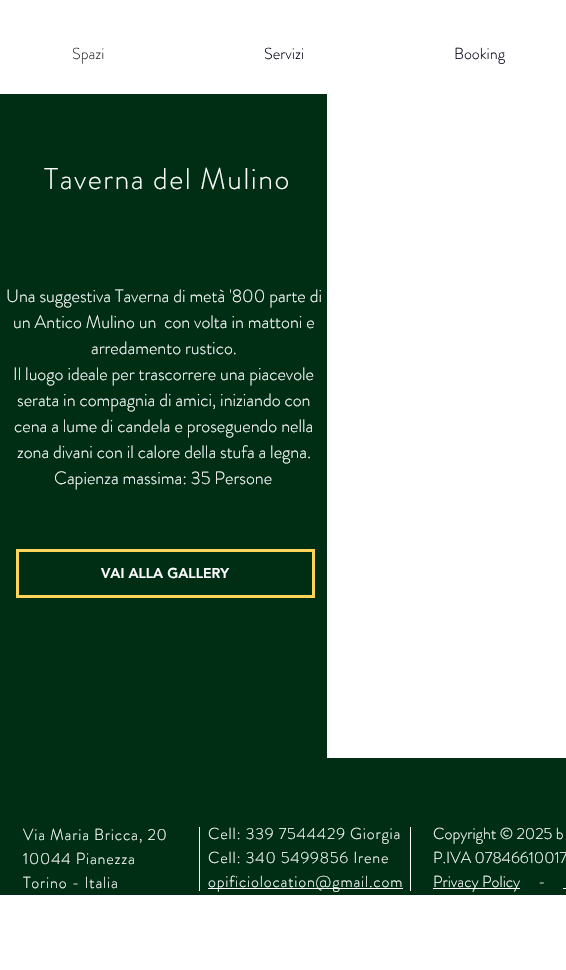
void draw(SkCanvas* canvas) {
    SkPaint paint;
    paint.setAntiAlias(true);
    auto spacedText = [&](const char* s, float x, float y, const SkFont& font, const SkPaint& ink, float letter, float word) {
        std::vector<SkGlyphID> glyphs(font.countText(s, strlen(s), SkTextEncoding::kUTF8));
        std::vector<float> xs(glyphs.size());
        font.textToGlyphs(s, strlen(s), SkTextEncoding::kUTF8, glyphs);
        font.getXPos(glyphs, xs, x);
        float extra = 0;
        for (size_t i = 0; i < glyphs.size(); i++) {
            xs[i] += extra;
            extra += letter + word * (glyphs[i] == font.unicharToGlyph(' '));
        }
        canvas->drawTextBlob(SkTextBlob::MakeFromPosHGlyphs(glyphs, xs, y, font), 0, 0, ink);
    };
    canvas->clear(0xFFFFFFFF);
    SkFont font1(fontMgr->matchFamilyStyle("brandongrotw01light", SkFontStyle(300, SkFontStyle::kNormal_Width, SkFontStyle::kUpright_Slant)), 16);
    font1.setSubpixel(true);
    paint.setColor(0xFF333333);
    canvas->drawString("Spazi", 72, 59, font1, paint);
    paint.setColor(0xFF060217);
    canvas->drawString("Servizi", 264, 59, font1, paint);
    canvas->drawString("Booking", 454, 59, font1, paint);
    paint.setColor(0xFF002E14);
    canvas->drawRect(SkRect::MakeXYWH(0, 94, 327, 664), paint);
    SkFont font2(fontMgr->matchFamilyStyle("brandongrotw01light", SkFontStyle(300, SkFontStyle::kNormal_Width, SkFontStyle::kUpright_Slant)), 30);
    font2.setSubpixel(true);
    paint.setColor(0xFFFFFFFF);
    spacedText("Taverna del Mulino", 44, 189, font2, paint, 1.5f, 0);
    SkFont font3(fontMgr->matchFamilyStyle("brandongrotw01light", SkFontStyle(300, SkFontStyle::kNormal_Width, SkFontStyle::kUpright_Slant)), 18);
    font3.setSubpixel(true);
    canvas->drawString("Una suggestiva Taverna di metà '800 parte di", 6, 302, font3, paint);
    canvas->drawString("un Antico Mulino un  con volta in mattoni e", 13, 328, font3, paint);
    canvas->drawString("arredamento rustico.", 91, 354, font3, paint);
    canvas->drawString("Il luogo ideale per trascorrere una piacevole", 13, 380, font3, paint);
    canvas->drawString("serata in compagnia di amici, iniziando con", 17, 406, font3, paint);
    canvas->drawString("cena a lume di candela e proseguendo nella", 14, 432, font3, paint);
    canvas->drawString("zona divani con il calore della stufa a legna.", 17, 458, font3, paint);
    canvas->drawString("Capienza massima: 35 Persone", 54, 484, font3, paint);
    paint.setStyle(SkPaint::kStroke_Style);
    paint.setStrokeWidth(3);
    paint.setColor(0xFFFFD45A);
    canvas->drawRect(SkRect::MakeXYWH(17.5f, 550.5f, 296, 46), paint);
    SkFont font4(fontMgr->matchFamilyStyle("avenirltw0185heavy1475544", SkFontStyle(900, SkFontStyle::kNormal_Width, SkFontStyle::kUpright_Slant)), 14);
    font4.setSubpixel(true);
    paint.setStyle(SkPaint::kFill_Style);
    paint.setColor(0xFFFFFFFF);
    canvas->drawString("VAI ALLA GALLERY", 101, 578, font4, paint);
    paint.setColor(0xFF002E14);
    canvas->drawRect(SkRect::MakeXYWH(0, 758, 566, 137), paint);
    paint.setColor(0xFFFFFFFF);
    spacedText("Via Maria Bricca, 20", 23, 840, font1, paint, 0.8f, 0);
    spacedText("10044 Pianezza", 23, 864, font1, paint, 0.8f, 0);
    spacedText("Torino - Italia", 23, 888, font1, paint, 0.8f, 0);
    canvas->drawRect(SkRect::MakeXYWH(199, 827, 1, 64), paint);
    spacedText("Cell: 339 7544429 Giorgia", 208, 839, font1, paint, 0.8f, 0);
    spacedText("Cell: 340 5499856 Irene", 208, 863, font1, paint, 0.8f, 0);
    canvas->drawRect(SkRect::MakeXYWH(208, 888, 195, 1), paint);
    spacedText("opificiolocation@gmail.com", 208, 887, font1, paint, 0.8f, 0);
    canvas->drawRect(SkRect::MakeXYWH(410, 827, 1, 64), paint);
    canvas->drawString("Copyright © 2025 b", 433, 839, font1, paint);
    canvas->drawString("P.IVA 07846610017", 433, 863, font1, paint);
    canvas->drawRect(SkRect::MakeXYWH(433, 888, 87, 1), paint);
    canvas->drawString("Privacy Policy", 433, 887, font1, paint);
    canvas->drawString("-", 538, 887, font1, paint);
    canvas->drawRect(SkRect::MakeXYWH(563, 888, 3, 1), paint);
}
